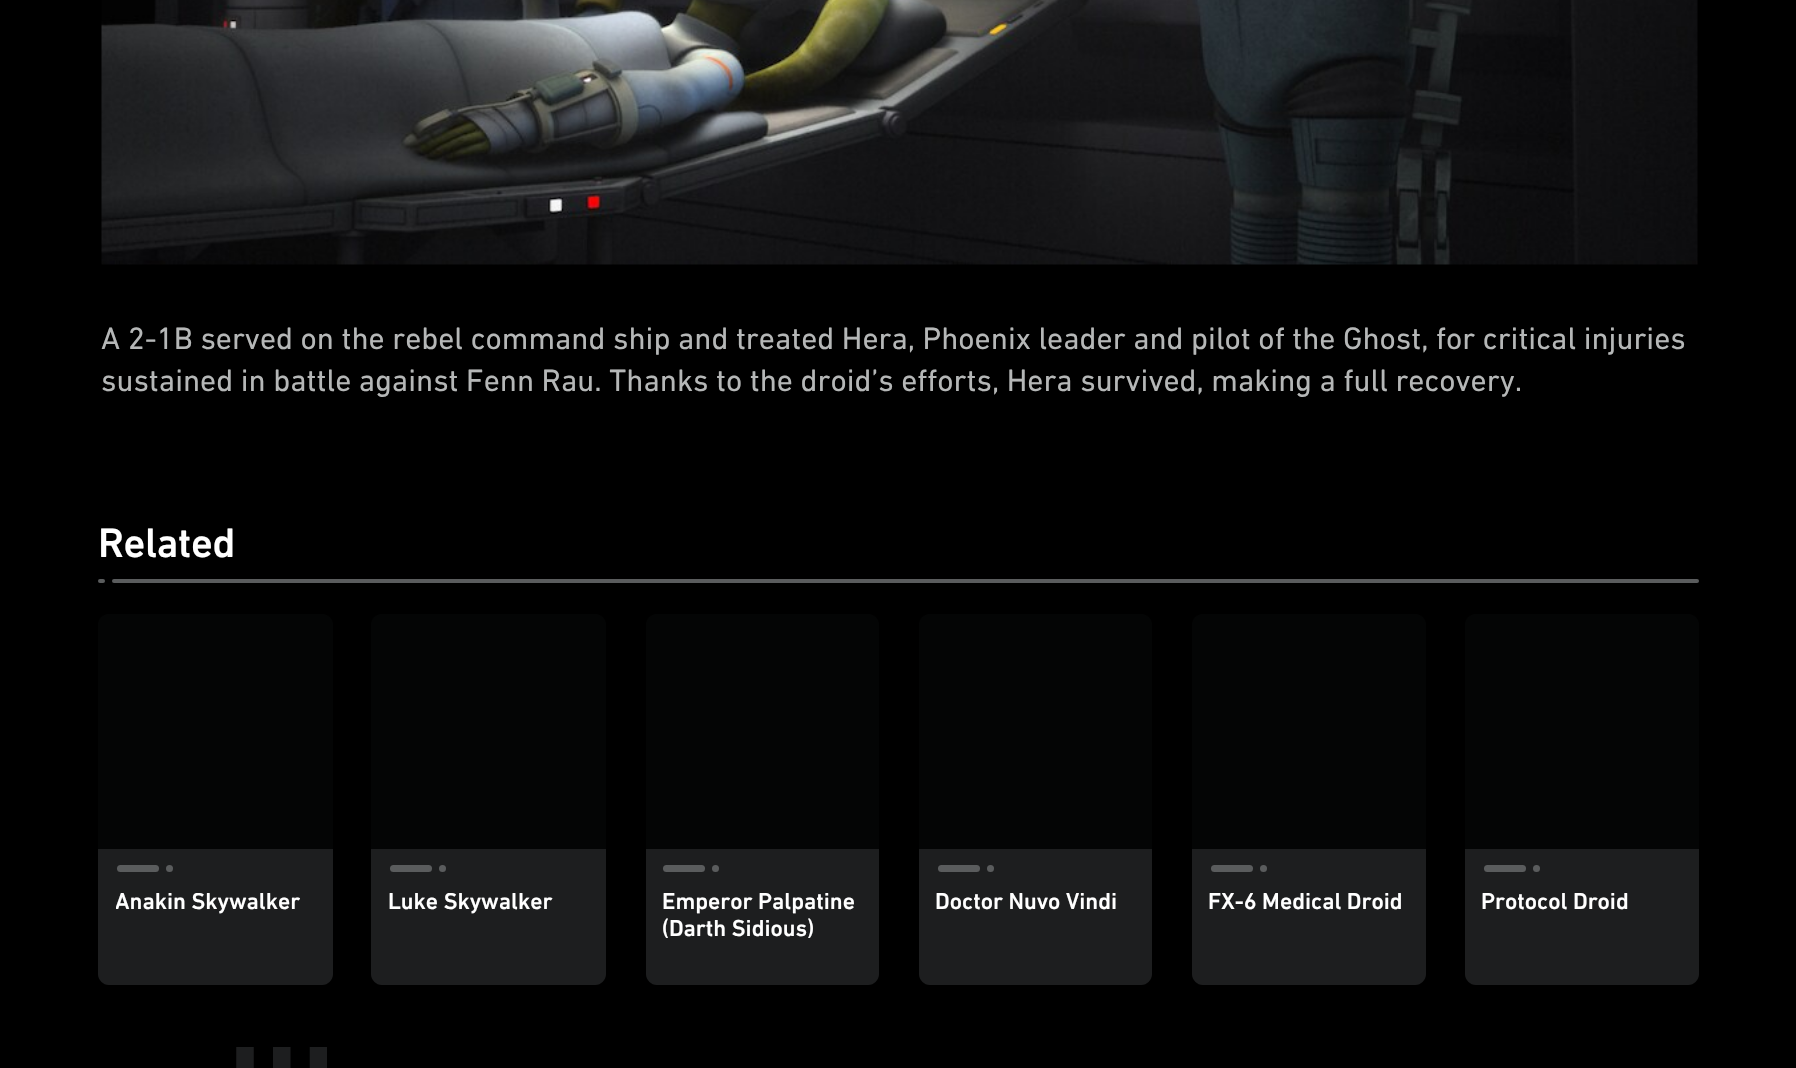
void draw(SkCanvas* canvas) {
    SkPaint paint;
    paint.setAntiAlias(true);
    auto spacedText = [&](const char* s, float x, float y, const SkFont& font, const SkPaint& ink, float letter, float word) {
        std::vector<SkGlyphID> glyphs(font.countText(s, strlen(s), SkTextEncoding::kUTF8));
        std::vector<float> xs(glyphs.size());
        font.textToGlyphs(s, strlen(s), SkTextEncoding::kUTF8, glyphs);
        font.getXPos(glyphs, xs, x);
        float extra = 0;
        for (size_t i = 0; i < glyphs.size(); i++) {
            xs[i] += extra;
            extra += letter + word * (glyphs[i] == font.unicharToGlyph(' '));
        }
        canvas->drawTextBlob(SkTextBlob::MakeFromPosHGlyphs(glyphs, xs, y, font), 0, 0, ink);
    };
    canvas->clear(0xFF000000);
    canvas->drawImageRect(SkImages::DeferredFromEncodedData(SkData::MakeFromFileName("img1.png")), SkRect::MakeXYWH(101, 0, 1597, 265), SkSamplingOptions());
    SkFont font1(fontMgr->matchFamilyStyle("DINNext", SkFontStyle::Normal()), 31.5f);
    font1.setSubpixel(true);
    paint.setColor(0xFFB5B7B7);
    canvas->drawString("A 2-1B served on the rebel command ship and treated Hera, Phoenix leader and pilot of the Ghost, for critical injuries", 101, 349, font1, paint);
    canvas->drawString("sustained in battle against Fenn Rau. Thanks to the droid’s efforts, Hera survived, making a full recovery.", 101, 391, font1, paint);
    SkFont font2(fontMgr->matchFamilyStyle("DINNext", SkFontStyle(500, SkFontStyle::kNormal_Width, SkFontStyle::kUpright_Slant)), 42);
    font2.setSubpixel(true);
    paint.setColor(0xFFFFFFFF);
    spacedText("Related", 98, 557, font2, paint, -0.5f, 0);
    paint.setColor(0xFF5A5C5D);
    canvas->drawRoundRect(SkRect::MakeXYWH(98, 579, 7, 4), 2, 2, paint);
    canvas->drawRoundRect(SkRect::MakeXYWH(112, 579, 1587, 4), 2, 2, paint);
    paint.setColor(0xFF040505);
    canvas->drawPath(SkPathBuilder().moveTo(109, 614).lineTo(322, 614).cubicTo(328, 614, 333, 619, 333, 625).lineTo(333, 849).lineTo(98, 849).lineTo(98, 625).cubicTo(98, 619, 103, 614, 109, 614).close().detach(), paint);
    paint.setColor(0xFF1D1E1F);
    canvas->drawPath(SkPathBuilder().moveTo(98, 849).lineTo(333, 849).lineTo(333, 974).cubicTo(333, 980, 328, 985, 322, 985).lineTo(109, 985).cubicTo(103, 985, 98, 980, 98, 974).close().detach(), paint);
    paint.setColor(0xFF5A5C5D);
    canvas->drawRoundRect(SkRect::MakeXYWH(117, 865, 42, 7), 3.5f, 3.5f, paint);
    canvas->drawCircle(169.5f, 868.5f, 3.5f, paint);
    canvas->save();
    canvas->clipRect(SkRect::MakeXYWH(116, 893, 199, 26));
    SkFont font3(fontMgr->matchFamilyStyle("DINNext", SkFontStyle(500, SkFontStyle::kNormal_Width, SkFontStyle::kUpright_Slant)), 23.5f);
    font3.setSubpixel(true);
    paint.setColor(0xFFFFFFFF);
    canvas->drawString("Anakin Skywalker", 115, 909, font3, paint);
    canvas->restore();
    paint.setColor(0xFF040505);
    canvas->drawPath(SkPathBuilder().moveTo(382, 614).lineTo(595, 614).cubicTo(601, 614, 606, 619, 606, 625).lineTo(606, 849).lineTo(371, 849).lineTo(371, 625).cubicTo(371, 619, 376, 614, 382, 614).close().detach(), paint);
    paint.setColor(0xFF1D1E1F);
    canvas->drawPath(SkPathBuilder().moveTo(371, 849).lineTo(606, 849).lineTo(606, 974).cubicTo(606, 980, 601, 985, 595, 985).lineTo(382, 985).cubicTo(376, 985, 371, 980, 371, 974).close().detach(), paint);
    paint.setColor(0xFF5A5C5D);
    canvas->drawRoundRect(SkRect::MakeXYWH(390, 865, 42, 7), 3.5f, 3.5f, paint);
    canvas->drawCircle(442.5f, 868.5f, 3.5f, paint);
    canvas->save();
    canvas->clipRect(SkRect::MakeXYWH(389, 893, 201, 26));
    paint.setColor(0xFFFFFFFF);
    canvas->drawString("Luke Skywalker", 388, 909, font3, paint);
    canvas->restore();
    paint.setColor(0xFF040505);
    canvas->drawPath(SkPathBuilder().moveTo(657, 614).lineTo(868, 614).cubicTo(874, 614, 879, 619, 879, 625).lineTo(879, 849).lineTo(646, 849).lineTo(646, 625).cubicTo(646, 619, 651, 614, 657, 614).close().detach(), paint);
    paint.setColor(0xFF1D1E1F);
    canvas->drawPath(SkPathBuilder().moveTo(646, 849).lineTo(879, 849).lineTo(879, 974).cubicTo(879, 980, 874, 985, 868, 985).lineTo(657, 985).cubicTo(651, 985, 646, 980, 646, 974).close().detach(), paint);
    paint.setColor(0xFF5A5C5D);
    canvas->drawRoundRect(SkRect::MakeXYWH(663, 865, 42, 7), 3.5f, 3.5f, paint);
    canvas->drawCircle(715.5f, 868.5f, 3.5f, paint);
    paint.setColor(0xFFFFFFFF);
    canvas->drawString("Emperor Palpatine", 662, 909, font3, paint);
    canvas->drawString("(Darth Sidious)", 662, 936, font3, paint);
    paint.setColor(0xFF040505);
    canvas->drawPath(SkPathBuilder().moveTo(930, 614).lineTo(1141, 614).cubicTo(1147, 614, 1152, 619, 1152, 625).lineTo(1152, 849).lineTo(919, 849).lineTo(919, 625).cubicTo(919, 619, 924, 614, 930, 614).close().detach(), paint);
    paint.setColor(0xFF1D1E1F);
    canvas->drawPath(SkPathBuilder().moveTo(919, 849).lineTo(1152, 849).lineTo(1152, 974).cubicTo(1152, 980, 1147, 985, 1141, 985).lineTo(930, 985).cubicTo(924, 985, 919, 980, 919, 974).close().detach(), paint);
    paint.setColor(0xFF5A5C5D);
    canvas->drawRoundRect(SkRect::MakeXYWH(938, 865, 42, 7), 3.5f, 3.5f, paint);
    canvas->drawCircle(990.5f, 868.5f, 3.5f, paint);
    paint.setColor(0xFFFFFFFF);
    canvas->drawString("Doctor Nuvo Vindi", 935, 909, font3, paint);
    paint.setColor(0xFF040505);
    canvas->drawPath(SkPathBuilder().moveTo(1203, 614).lineTo(1415, 614).cubicTo(1421, 614, 1426, 619, 1426, 625).lineTo(1426, 849).lineTo(1192, 849).lineTo(1192, 625).cubicTo(1192, 619, 1197, 614, 1203, 614).close().detach(), paint);
    paint.setColor(0xFF1D1E1F);
    canvas->drawPath(SkPathBuilder().moveTo(1192, 849).lineTo(1426, 849).lineTo(1426, 974).cubicTo(1426, 980, 1421, 985, 1415, 985).lineTo(1203, 985).cubicTo(1197, 985, 1192, 980, 1192, 974).close().detach(), paint);
    paint.setColor(0xFF5A5C5D);
    canvas->drawRoundRect(SkRect::MakeXYWH(1211, 865, 42, 7), 3.5f, 3.5f, paint);
    canvas->drawCircle(1263.5f, 868.5f, 3.5f, paint);
    paint.setColor(0xFFFFFFFF);
    canvas->drawString("FX-6 Medical Droid", 1208, 909, font3, paint);
    paint.setColor(0xFF040505);
    canvas->drawPath(SkPathBuilder().moveTo(1476, 614).lineTo(1688, 614).cubicTo(1694, 614, 1699, 619, 1699, 625).lineTo(1699, 849).lineTo(1465, 849).lineTo(1465, 625).cubicTo(1465, 619, 1470, 614, 1476, 614).close().detach(), paint);
    paint.setColor(0xFF1D1E1F);
    canvas->drawPath(SkPathBuilder().moveTo(1465, 849).lineTo(1699, 849).lineTo(1699, 974).cubicTo(1699, 980, 1694, 985, 1688, 985).lineTo(1476, 985).cubicTo(1470, 985, 1465, 980, 1465, 974).close().detach(), paint);
    paint.setColor(0xFF5A5C5D);
    canvas->drawRoundRect(SkRect::MakeXYWH(1484, 865, 42, 7), 3.5f, 3.5f, paint);
    canvas->drawCircle(1536.5f, 868.5f, 3.5f, paint);
    paint.setColor(0xFFFFFFFF);
    canvas->drawString("Protocol Droid", 1481, 909, font3, paint);
    canvas->drawImageRect(SkImages::DeferredFromEncodedData(SkData::MakeFromFileName("img2.png")), SkRect::MakeXYWH(236, 1047, 91, 21), SkSamplingOptions());
}
